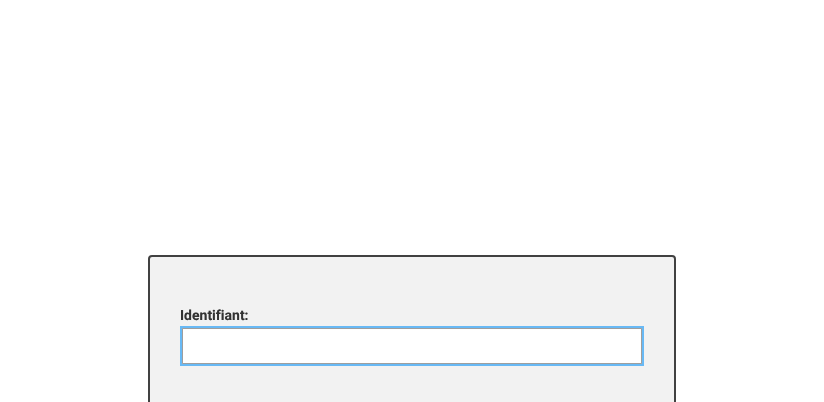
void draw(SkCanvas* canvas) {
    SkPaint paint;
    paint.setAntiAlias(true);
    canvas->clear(0xFFFFFFFF);
    paint.setColor(0xFFF2F2F2);
    canvas->drawRoundRect(SkRect::MakeXYWH(149, 256, 526, 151), 3, 3, paint);
    paint.setStyle(SkPaint::kStroke_Style);
    paint.setStrokeWidth(2);
    paint.setColor(0xFF414141);
    canvas->drawRoundRect(SkRect::MakeXYWH(149, 256, 526, 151), 3, 3, paint);
    SkFont font1(fontMgr->matchFamilyStyle("Roboto", SkFontStyle::Bold()), 14);
    font1.setSubpixel(true);
    paint.setStyle(SkPaint::kFill_Style);
    paint.setColor(0xFF333333);
    canvas->drawString("Identifiant:", 180, 320, font1, paint);
    paint.setColor(0xFFFFFFFF);
    canvas->drawRect(SkRect::MakeXYWH(181, 327, 462, 38), paint);
    paint.setStyle(SkPaint::kStroke_Style);
    paint.setColor(0xFF68B9F5);
    canvas->drawRect(SkRect::MakeXYWH(181, 327, 462, 38), paint);
    paint.setStyle(SkPaint::kFill_Style);
    paint.setColor(0xFF9E9E9E);
    canvas->drawPath(SkPathBuilder().moveTo(182, 328).lineTo(194, 328).lineTo(194, 329).lineTo(183, 329).close().moveTo(194, 364).lineTo(182, 364).lineTo(183, 363).lineTo(194, 363).close().detach(), paint);
    paint.setColor(0x61000000);
    canvas->drawPath(SkPathBuilder().moveTo(182, 364).lineTo(182, 328).lineTo(183, 329).lineTo(183, 363).close().detach(), paint);
    paint.setColor(0xFF9E9E9E);
    canvas->drawPath(SkPathBuilder().moveTo(194, 328).lineTo(642, 328).lineTo(641, 329).lineTo(194, 329).close().detach(), paint);
    paint.setColor(0x61000000);
    canvas->drawPath(SkPathBuilder().moveTo(642, 328).lineTo(642, 364).lineTo(641, 363).lineTo(641, 329).close().detach(), paint);
    canvas->drawPath(SkPathBuilder().moveTo(642, 364).lineTo(194, 364).lineTo(194, 363).lineTo(641, 363).close().detach(), paint);
}
